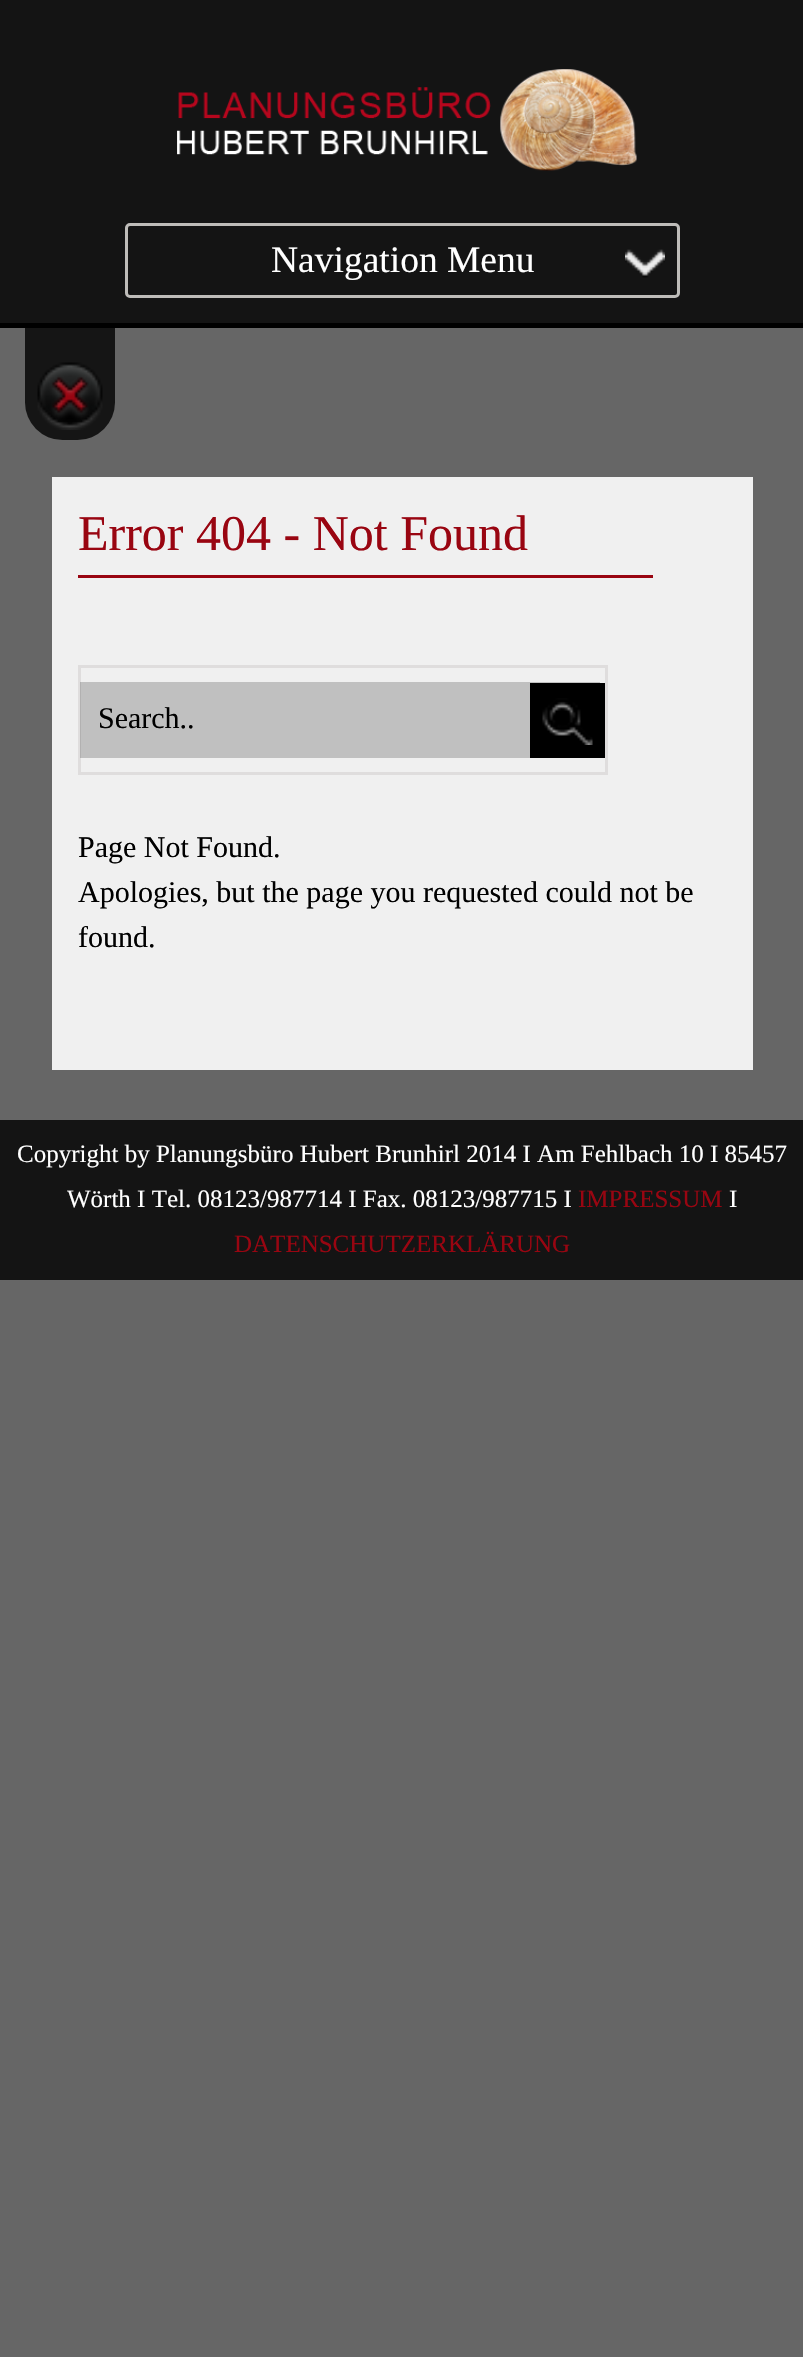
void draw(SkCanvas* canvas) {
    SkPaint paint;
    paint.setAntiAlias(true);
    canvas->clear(0xFF666666);
    paint.setColor(0xFF141414);
    canvas->drawRect(SkRect::MakeXYWH(0, 0, 803, 323), paint);
    paint.setColor(0xFF000000);
    canvas->drawRect(SkRect::MakeXYWH(0, 323, 803, 5), paint);
    canvas->drawImageRect(SkImages::DeferredFromEncodedData(SkData::MakeFromFileName("img1.png")), SkRect::MakeXYWH(177, 69, 460, 102), SkSamplingOptions());
    paint.setStyle(SkPaint::kStroke_Style);
    paint.setStrokeWidth(3);
    paint.setColor(0xFFBEBCB9);
    canvas->drawRoundRect(SkRect::MakeXYWH(126.5f, 224.5f, 552, 72), 3.5f, 3.5f, paint);
    canvas->drawImageRect(SkImages::DeferredFromEncodedData(SkData::MakeFromFileName("img2.png")), SkRect::MakeXYWH(625, 249, 40, 29), SkSamplingOptions());
    SkFont font1(fontMgr->matchFamilyStyle("Liberation Serif", SkFontStyle::Normal()), 37.5f);
    font1.setSubpixel(true);
    paint.setStyle(SkPaint::kFill_Style);
    paint.setColor(0xFFFFFFFF);
    canvas->drawString("Navigation Menu", 271, 272, font1, paint);
    canvas->drawImageRect(SkImages::DeferredFromEncodedData(SkData::MakeFromFileName("img3.png")), SkRect::MakeXYWH(25, 328, 90, 112), SkSamplingOptions());
    paint.setColor(0xFF990511);
    canvas->drawRect(SkRect::MakeXYWH(50, 375, 38, 38), paint);
    canvas->drawImageRect(SkImages::DeferredFromEncodedData(SkData::MakeFromFileName("img4.png")), SkRect::MakeXYWH(37, 362, 66, 68), SkSamplingOptions());
    paint.setColor(0xFFF0F0F0);
    canvas->drawRect(SkRect::MakeXYWH(52, 477, 701, 593), paint);
    paint.setColor(0xFF990511);
    canvas->drawRect(SkRect::MakeXYWH(78, 575, 575, 3), paint);
    SkFont font2(fontMgr->matchFamilyStyle("Liberation Serif", SkFontStyle::Normal()), 50);
    font2.setSubpixel(true);
    canvas->drawString("Error 404 - Not Found", 78, 550, font2, paint);
    paint.setStyle(SkPaint::kStroke_Style);
    paint.setColor(0xFFDFDDDD);
    canvas->drawRect(SkRect::MakeXYWH(79.5f, 666.5f, 527, 107), paint);
    paint.setStyle(SkPaint::kFill_Style);
    paint.setColor(0x33000000);
    canvas->drawRect(SkRect::MakeXYWH(80, 682, 520, 76), paint);
    SkFont font3(fontMgr->matchFamilyStyle("Liberation Serif", SkFontStyle::Normal()), 30);
    font3.setSubpixel(true);
    paint.setColor(0xFF000000);
    canvas->drawString("Search..", 98, 728, font3, paint);
    canvas->drawRect(SkRect::MakeXYWH(530, 683, 75, 75), paint);
    canvas->drawImageRect(SkImages::DeferredFromEncodedData(SkData::MakeFromFileName("img5.png")), SkRect::MakeXYWH(542, 698, 51, 47), SkSamplingOptions());
    canvas->drawString("Page Not Found.", 78, 857, font3, paint);
    canvas->drawString("Apologies, but the page you requested could not be", 78, 902, font3, paint);
    canvas->drawString("found.", 78, 947, font3, paint);
    paint.setColor(0xFF141414);
    canvas->drawRect(SkRect::MakeXYWH(0, 1120, 803, 160), paint);
    SkFont font4(fontMgr->matchFamilyStyle("Liberation Serif", SkFontStyle::Normal()), 25);
    font4.setSubpixel(true);
    paint.setColor(0xFFFFFFFF);
    canvas->drawString("Copyright by Planungsbüro Hubert Brunhirl 2014 I Am Fehlbach 10 I 85457", 17, 1162, font4, paint);
    canvas->drawString("Wörth I Tel. 08123/987714 I Fax. 08123/987715 I", 67, 1207, font4, paint);
    paint.setColor(0xFF990511);
    canvas->drawString("IMPRESSUM", 578, 1207, font4, paint);
    paint.setColor(0xFFFFFFFF);
    canvas->drawString("I", 729, 1207, font4, paint);
    paint.setColor(0xFF990511);
    canvas->drawString("DATENSCHUTZERKLÄRUNG", 234, 1252, font4, paint);
}
